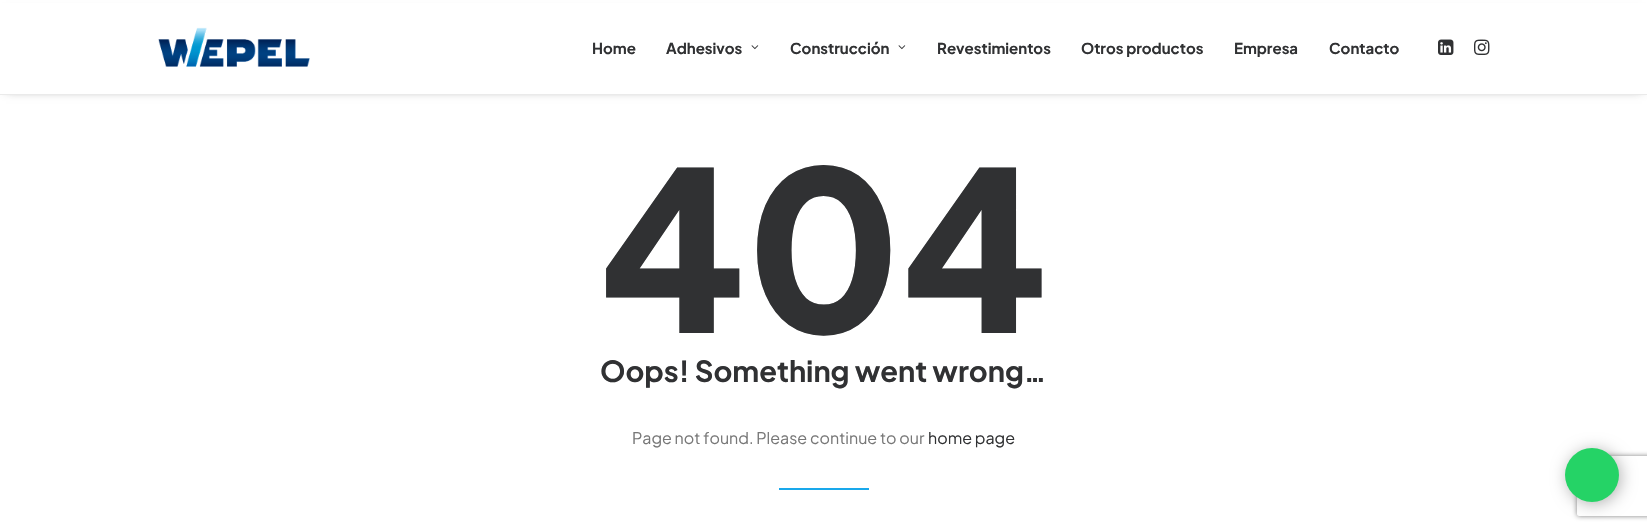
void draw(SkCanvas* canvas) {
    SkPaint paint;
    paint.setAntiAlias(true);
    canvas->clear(0xFFFFFFFF);
    paint.setColor(0x99000000);
    paint.setMaskFilter(SkMaskFilter::MakeBlur(kNormal_SkBlurStyle, 5));
    canvas->drawRect(SkRect::MakeXYWH(6, 14, 1636, 75), paint);
    paint.setMaskFilter(nullptr);
    paint.setColor(0xFFFFFFFF);
    canvas->drawRect(SkRect::MakeXYWH(0, 3, 1647, 91), paint);
    paint.setColor(0xFFEAEAEA);
    canvas->drawRect(SkRect::MakeXYWH(0, 94, 1647, 1), paint);
    canvas->drawImageRect(SkImages::DeferredFromEncodedData(SkData::MakeFromFileName("img1.png")), SkRect::MakeXYWH(158, 27, 152, 40), SkSamplingOptions());
    SkFont font1(fontMgr->matchFamilyStyle("Plus Jakarta Sans", SkFontStyle::Bold()), 15);
    font1.setSubpixel(true);
    paint.setColor(0xFF303133);
    canvas->drawString("Home", 592, 54, font1, paint);
    canvas->drawString("Adhesivos", 666, 54, font1, paint);
    canvas->drawImageRect(SkImages::DeferredFromEncodedData(SkData::MakeFromFileName("img2.png")), SkRect::MakeXYWH(751, 45, 8, 5), SkSamplingOptions());
    canvas->drawString("Construcción", 790, 54, font1, paint);
    canvas->drawImageRect(SkImages::DeferredFromEncodedData(SkData::MakeFromFileName("img2.png")), SkRect::MakeXYWH(898, 45, 8, 5), SkSamplingOptions());
    canvas->drawString("Revestimientos", 937, 54, font1, paint);
    canvas->drawString("Otros productos", 1081, 54, font1, paint);
    canvas->drawString("Empresa", 1234, 54, font1, paint);
    canvas->drawString("Contacto", 1329, 54, font1, paint);
    canvas->drawImageRect(SkImages::DeferredFromEncodedData(SkData::MakeFromFileName("img3.png")), SkRect::MakeXYWH(1438, 39, 16, 16), SkSamplingOptions());
    canvas->drawImageRect(SkImages::DeferredFromEncodedData(SkData::MakeFromFileName("img4.png")), SkRect::MakeXYWH(1474, 39, 16, 16), SkSamplingOptions());
    SkFont font2(fontMgr->matchFamilyStyle("Plus Jakarta Sans", SkFontStyle(800, SkFontStyle::kNormal_Width, SkFontStyle::kUpright_Slant)), 222);
    font2.setSubpixel(true);
    canvas->drawString("404", 599, 333, font2, paint);
    SkFont font3(fontMgr->matchFamilyStyle("Plus Jakarta Sans", SkFontStyle::Bold()), 29);
    font3.setSubpixel(true);
    canvas->drawString("Oops! Something went wrong…", 600, 382, font3, paint);
    SkFont font4(fontMgr->matchFamilyStyle("Plus Jakarta Sans", SkFontStyle::Normal()), 16);
    font4.setSubpixel(true);
    paint.setColor(0xFF777777);
    canvas->drawString("Page not found. Please continue to our", 632, 444, font4, paint);
    paint.setColor(0xFF303133);
    canvas->drawString("home page", 928, 444, font4, paint);
    paint.setColor(0xFF19A8EB);
    canvas->drawRect(SkRect::MakeXYWH(779, 488, 90, 2), paint);
    paint.setColor(0x4D000000);
    paint.setMaskFilter(SkMaskFilter::MakeBlur(kNormal_SkBlurStyle, 8));
    canvas->drawRoundRect(SkRect::MakeXYWH(1567, 450, 54, 54), 27, 27, paint);
    paint.setMaskFilter(nullptr);
    canvas->save();
    canvas->clipPath(SkPathBuilder(SkPathFillType::kEvenOdd).moveTo(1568, 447).lineTo(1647, 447).lineTo(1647, 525).lineTo(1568, 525).close().moveTo(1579, 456).lineTo(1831, 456).cubicTo(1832, 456, 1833, 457, 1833, 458).lineTo(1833, 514).cubicTo(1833, 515, 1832, 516, 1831, 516).lineTo(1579, 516).cubicTo(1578, 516, 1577, 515, 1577, 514).lineTo(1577, 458).cubicTo(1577, 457, 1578, 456, 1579, 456).close().detach(), true);
    paint.setColor(0xFF808080);
    paint.setMaskFilter(SkMaskFilter::MakeBlur(kNormal_SkBlurStyle, 2.5f));
    canvas->drawRoundRect(SkRect::MakeXYWH(1577, 456, 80, 60), 2, 2, paint);
    paint.setMaskFilter(nullptr);
    canvas->restore();
    paint.setColor(0xFF25D366);
    canvas->drawCircle(1592, 475, 27, paint);
}
